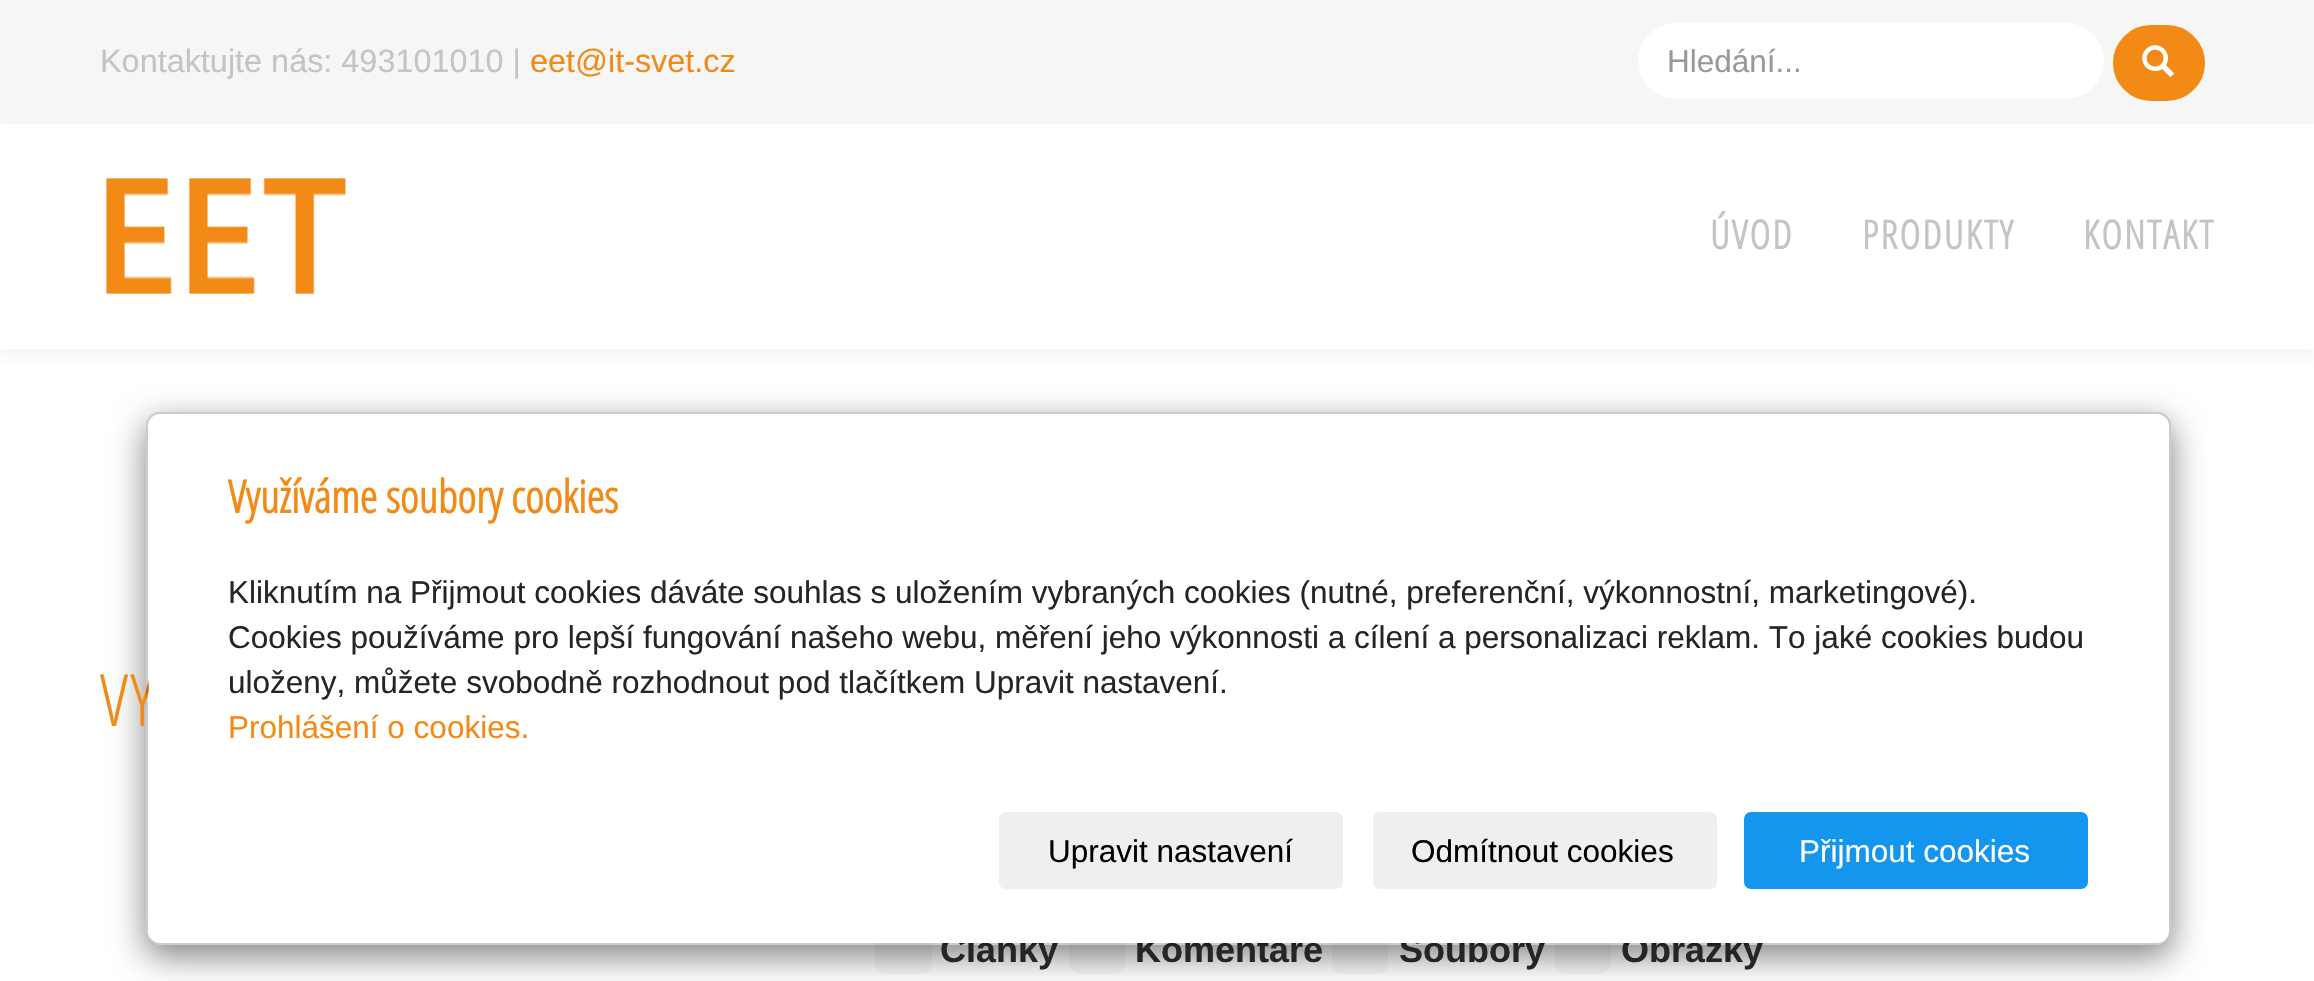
void draw(SkCanvas* canvas) {
    SkPaint paint;
    paint.setAntiAlias(true);
    auto spacedText = [&](const char* s, float x, float y, const SkFont& font, const SkPaint& ink, float letter, float word) {
        std::vector<SkGlyphID> glyphs(font.countText(s, strlen(s), SkTextEncoding::kUTF8));
        std::vector<float> xs(glyphs.size());
        font.textToGlyphs(s, strlen(s), SkTextEncoding::kUTF8, glyphs);
        font.getXPos(glyphs, xs, x);
        float extra = 0;
        for (size_t i = 0; i < glyphs.size(); i++) {
            xs[i] += extra;
            extra += letter + word * (glyphs[i] == font.unicharToGlyph(' '));
        }
        canvas->drawTextBlob(SkTextBlob::MakeFromPosHGlyphs(glyphs, xs, y, font), 0, 0, ink);
    };
    canvas->clear(0xFFFFFFFF);
    paint.setColor(0xFFF6F6F6);
    canvas->drawRect(SkRect::MakeXYWH(0, 0, 2314, 124), paint);
    SkFont font1(fontMgr->matchFamilyStyle("Liberation Sans", SkFontStyle::Normal()), 32.4f);
    font1.setSubpixel(true);
    paint.setColor(0xFFC4C4C4);
    canvas->drawString("Kontaktujte nás: 493101010 |", 100, 72, font1, paint);
    paint.setColor(0xFFF38A15);
    canvas->drawString("eet@it-svet.cz", 530, 72, font1, paint);
    paint.setColor(0xFFFFFFFF);
    canvas->drawRoundRect(SkRect::MakeXYWH(1638, 23, 466, 76), 38, 38, paint);
    SkFont font2(fontMgr->matchFamilyStyle("Liberation Sans", SkFontStyle::Normal()), 31.5f);
    font2.setSubpixel(true);
    paint.setColor(0xFF999999);
    canvas->drawString("Hledání...", 1667, 72, font2, paint);
    paint.setColor(0xFFF38A15);
    canvas->drawRoundRect(SkRect::MakeXYWH(2114, 26, 90, 74), 37, 37, paint);
    paint.setStyle(SkPaint::kStroke_Style);
    paint.setStrokeWidth(2);
    canvas->drawRoundRect(SkRect::MakeXYWH(2114, 26, 90, 74), 37, 37, paint);
    canvas->drawImageRect(SkImages::DeferredFromEncodedData(SkData::MakeFromFileName("img1.png")), SkRect::MakeXYWH(2142, 45, 32, 32), SkSamplingOptions());
    paint.setStyle(SkPaint::kFill_Style);
    paint.setColor(0x0D323232);
    paint.setMaskFilter(SkMaskFilter::MakeBlur(kNormal_SkBlurStyle, 5.5f));
    canvas->drawRect(SkRect::MakeXYWH(0, 133, 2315, 225), paint);
    paint.setMaskFilter(nullptr);
    paint.setColor(0xFFFFFFFF);
    canvas->drawRect(SkRect::MakeXYWH(0, 129, 2314, 220), paint);
    canvas->drawImageRect(SkImages::DeferredFromEncodedData(SkData::MakeFromFileName("img2.png")), SkRect::MakeXYWH(106, 178, 240, 116), SkSamplingOptions());
    SkFont font3(fontMgr->matchFamilyStyle("Open Sans", SkFontStyle::Bold()), 39.5f);
    font3.setSubpixel(true);
    paint.setColor(0xFFC4C4C4);
    spacedText("ÚVOD", 1710, 249, font3, paint, 2.25f, 0);
    spacedText("PRODUKTY", 1862, 249, font3, paint, 2.25f, 0);
    spacedText("KONTAKT", 2083, 249, font3, paint, 2.25f, 0);
    paint.setColor(0xFFF6F6F6);
    canvas->drawRoundRect(SkRect::MakeXYWH(875, 918, 57, 56), 11, 11, paint);
    canvas->drawRoundRect(SkRect::MakeXYWH(1069, 918, 56, 56), 11, 11, paint);
    canvas->drawRoundRect(SkRect::MakeXYWH(1332, 918, 56, 56), 11, 11, paint);
    canvas->drawRoundRect(SkRect::MakeXYWH(1555, 918, 56, 56), 11, 11, paint);
    canvas->save();
    canvas->clipPath(SkPathBuilder(SkPathFillType::kEvenOdd).moveTo(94, 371).lineTo(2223, 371).lineTo(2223, 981).lineTo(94, 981).close().moveTo(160, 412).lineTo(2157, 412).cubicTo(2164.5f, 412, 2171, 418.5f, 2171, 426).lineTo(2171, 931).cubicTo(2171, 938.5f, 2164.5f, 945, 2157, 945).lineTo(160, 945).cubicTo(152.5f, 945, 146, 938.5f, 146, 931).lineTo(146, 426).cubicTo(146, 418.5f, 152.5f, 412, 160, 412).close().detach(), true);
    paint.setColor(0x80000000);
    paint.setMaskFilter(SkMaskFilter::MakeBlur(kNormal_SkBlurStyle, 17));
    canvas->drawRoundRect(SkRect::MakeXYWH(146, 423, 2025, 533), 14, 14, paint);
    paint.setMaskFilter(nullptr);
    canvas->restore();
    SkFont font4(fontMgr->matchFamilyStyle("Open Sans", SkFontStyle(300, SkFontStyle::kNormal_Width, SkFontStyle::kUpright_Slant)), 72);
    font4.setSubpixel(true);
    paint.setColor(0xFFF38A15);
    spacedText("VY", 100, 726, font4, paint, 2.25f, 0);
    SkFont font5(fontMgr->matchFamilyStyle("Liberation Sans", SkFontStyle::Bold()), 36);
    font5.setSubpixel(true);
    paint.setColor(0xFF252525);
    canvas->drawString("Články", 940, 962, font5, paint);
    canvas->drawString("Komentáře", 1135, 962, font5, paint);
    canvas->drawString("Soubory", 1399, 962, font5, paint);
    canvas->drawString("Obrázky", 1621, 962, font5, paint);
    paint.setColor(0xFFFFFFFF);
    canvas->drawRoundRect(SkRect::MakeXYWH(149, 414, 2020, 529), 11, 11, paint);
    paint.setStyle(SkPaint::kStroke_Style);
    paint.setColor(0x33000000);
    canvas->drawRoundRect(SkRect::MakeXYWH(147, 413, 2023, 531), 13, 13, paint);
    SkFont font6(fontMgr->matchFamilyStyle("Open Sans", SkFontStyle::Bold()), 45);
    font6.setSubpixel(true);
    paint.setStyle(SkPaint::kFill_Style);
    paint.setColor(0xFFF38A15);
    canvas->drawString("Využíváme soubory cookies", 228, 513, font6, paint);
    paint.setColor(0xFF252525);
    canvas->drawString("Kliknutím na Přijmout cookies dáváte souhlas s uložením vybraných cookies (nutné, preferenční, výkonnostní, marketingové).", 228, 603, font2, paint);
    canvas->drawString("Cookies používáme pro lepší fungování našeho webu, měření jeho výkonnosti a cílení a personalizaci reklam. To jaké cookies budou", 228, 648, font2, paint);
    canvas->drawString("uloženy, můžete svobodně rozhodnout pod tlačítkem Upravit nastavení.", 228, 693, font2, paint);
    paint.setColor(0xFFF38A15);
    canvas->drawString("Prohlášení o cookies.", 228, 738, font2, paint);
    paint.setColor(0xFFEFEFEF);
    canvas->drawRoundRect(SkRect::MakeXYWH(999, 812, 344, 77), 7, 7, paint);
    paint.setColor(0xFF000000);
    canvas->drawString("Upravit nastavení", 1048, 862, font2, paint);
    paint.setColor(0xFFEFEFEF);
    canvas->drawRoundRect(SkRect::MakeXYWH(1373, 812, 344, 77), 7, 7, paint);
    paint.setColor(0xFF000000);
    canvas->drawString("Odmítnout cookies", 1411, 862, font2, paint);
    paint.setColor(0xFF1496EE);
    canvas->drawRoundRect(SkRect::MakeXYWH(1745, 813, 342, 75), 6, 6, paint);
    paint.setStyle(SkPaint::kStroke_Style);
    canvas->drawRoundRect(SkRect::MakeXYWH(1745, 813, 342, 75), 6, 6, paint);
    paint.setStyle(SkPaint::kFill_Style);
    paint.setColor(0xFFFFFFFF);
    canvas->drawString("Přijmout cookies", 1799, 862, font2, paint);
}
